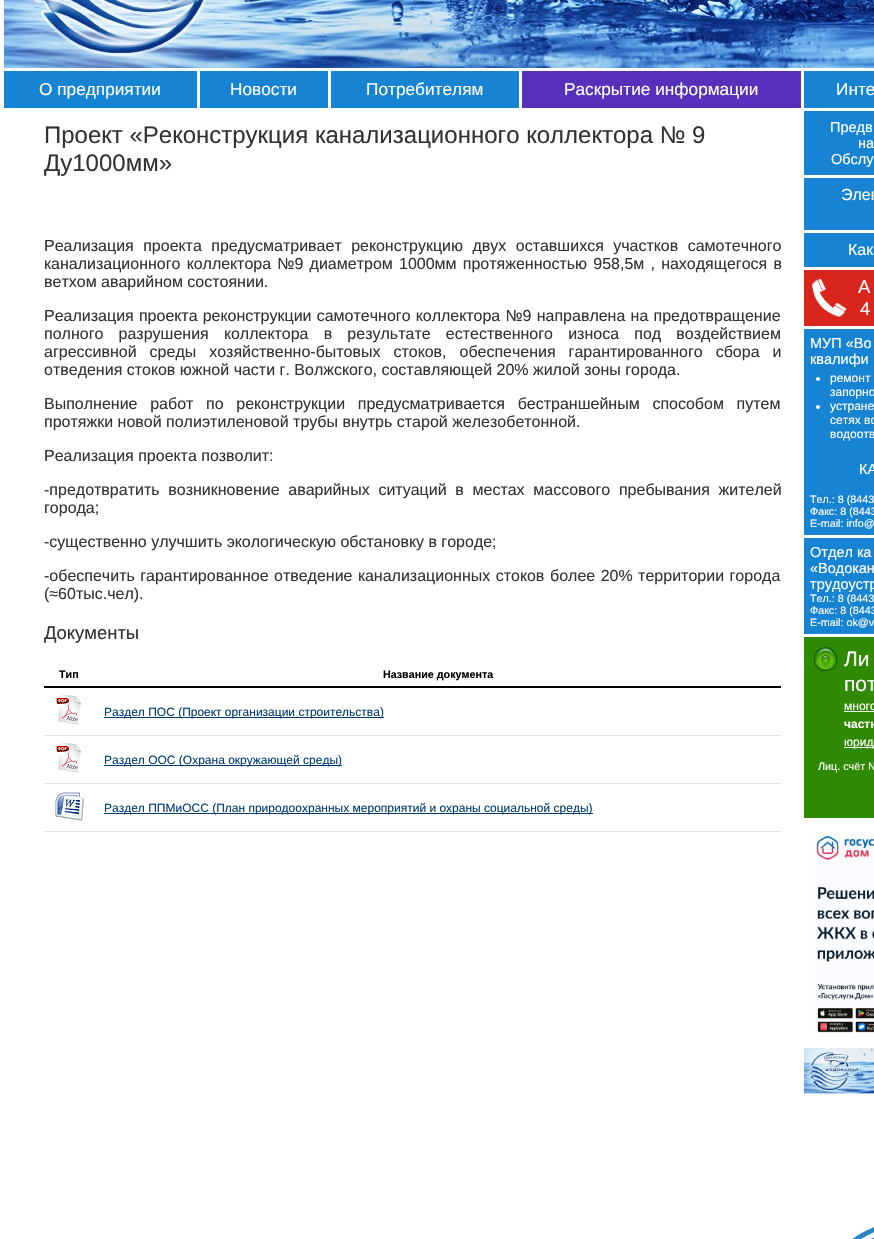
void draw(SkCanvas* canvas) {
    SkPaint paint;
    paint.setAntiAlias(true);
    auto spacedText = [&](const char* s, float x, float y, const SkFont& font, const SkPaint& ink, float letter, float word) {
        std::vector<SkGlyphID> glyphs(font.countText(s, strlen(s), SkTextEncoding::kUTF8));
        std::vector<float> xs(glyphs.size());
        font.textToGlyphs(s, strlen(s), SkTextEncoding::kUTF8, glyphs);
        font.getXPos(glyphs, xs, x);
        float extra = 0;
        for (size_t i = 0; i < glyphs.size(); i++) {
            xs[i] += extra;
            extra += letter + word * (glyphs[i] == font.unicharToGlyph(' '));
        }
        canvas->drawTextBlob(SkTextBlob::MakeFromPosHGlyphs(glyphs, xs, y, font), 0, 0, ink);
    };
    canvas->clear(0xFFFFFFFF);
    canvas->drawImageRect(SkImages::DeferredFromEncodedData(SkData::MakeFromFileName("img1.png")), SkRect::MakeXYWH(4, 0, 870, 68), SkSamplingOptions());
    paint.setColor(0xFF1683D3);
    canvas->drawRect(SkRect::MakeXYWH(4, 71, 193, 37), paint);
    SkFont font1(fontMgr->matchFamilyStyle("Liberation Sans", SkFontStyle::Normal()), 17.25f);
    font1.setSubpixel(true);
    paint.setColor(0xFFFFFFFF);
    canvas->drawString("О предприятии", 39, 95, font1, paint);
    paint.setColor(0xFF1683D3);
    canvas->drawRect(SkRect::MakeXYWH(200, 71, 128, 37), paint);
    paint.setColor(0xFFFFFFFF);
    canvas->drawString("Новости", 230, 95, font1, paint);
    paint.setColor(0xFF1683D3);
    canvas->drawRect(SkRect::MakeXYWH(331, 71, 188, 37), paint);
    paint.setColor(0xFFFFFFFF);
    canvas->drawString("Потребителям", 366, 95, font1, paint);
    paint.setColor(0xFF5630BA);
    canvas->drawRect(SkRect::MakeXYWH(522, 71, 279, 37), paint);
    paint.setColor(0xFFFFFFFF);
    canvas->drawString("Раскрытие информации", 564, 95, font1, paint);
    paint.setColor(0xFF1683D3);
    canvas->drawRect(SkRect::MakeXYWH(804, 71, 70, 37), paint);
    paint.setColor(0xFFFFFFFF);
    canvas->drawString("Инте", 836, 95, font1, paint);
    SkFont font2(fontMgr->matchFamilyStyle("Liberation Sans", SkFontStyle::Normal()), 24);
    font2.setSubpixel(true);
    paint.setColor(0xFF333333);
    canvas->drawString("Проект «Реконструкция канализационного коллектора № 9", 44, 143, font2, paint);
    canvas->drawString("Ду1000мм»", 44, 171, font2, paint);
    SkFont font3(fontMgr->matchFamilyStyle("Liberation Sans", SkFontStyle::Normal()), 16);
    font3.setSubpixel(true);
    spacedText("Реализация проекта предусматривает реконструкцию двух оставшихся участков самотечного", 44, 251, font3, paint, 0, 5);
    spacedText("канализационного коллектора №9 диаметром 1000мм протяженностью 958,5м , находящегося в", 44, 269, font3, paint, 0, 1.75f);
    canvas->drawString("ветхом аварийном состоянии.", 44, 287, font3, paint);
    spacedText("Реализация проекта реконструкции самотечного коллектора №9 направлена на предотвращение", 44, 321, font3, paint, 0, 0.75f);
    spacedText("полного разрушения коллектора в результате естественного износа под воздействием", 44, 339, font3, paint, 0, 10.75f);
    spacedText("агрессивной среды хозяйственно-бытовых стоков, обеспечения гарантированного сбора и", 44, 357, font3, paint, 0, 8.5f);
    canvas->drawString("отведения стоков южной части г. Волжского, составляющей 20% жилой зоны города.", 44, 375, font3, paint);
    spacedText("Выполнение работ по реконструкции предусматривается бестраншейным способом путем", 44, 409, font3, paint, 0, 8.25f);
    canvas->drawString("протяжки новой полиэтиленовой трубы внутрь старой железобетонной.", 44, 427, font3, paint);
    canvas->drawString("Реализация проекта позволит:", 44, 461, font3, paint);
    spacedText("-предотвратить возникновение аварийных ситуаций в местах массового пребывания жителей", 44, 495, font3, paint, 0, 4.25f);
    canvas->drawString("города;", 44, 513, font3, paint);
    canvas->drawString("-существенно улучшить экологическую обстановку в городе;", 44, 547, font3, paint);
    spacedText("-обеспечить гарантированное отведение канализационных стоков", 44, 581, font3, paint, 0, 1);
    spacedText("более 20% территории города", 550, 581, font3, paint, 0, 1);
    canvas->drawString("(≈60тыс.чел).", 44, 599, font3, paint);
    SkFont font4(fontMgr->matchFamilyStyle("Liberation Sans", SkFontStyle::Normal()), 18.5f);
    font4.setSubpixel(true);
    canvas->drawString("Документы", 44, 639, font4, paint);
    paint.setColor(0xFF000000);
    canvas->drawRect(SkRect::MakeXYWH(44, 686, 737, 2), paint);
    SkFont font5(fontMgr->matchFamilyStyle("Liberation Sans", SkFontStyle::Bold()), 10.75f);
    font5.setSubpixel(true);
    canvas->drawString("Тип", 59, 678, font5, paint);
    canvas->drawString("Название документа", 383, 678, font5, paint);
    paint.setColor(0xFFE0E2E7);
    canvas->drawRect(SkRect::MakeXYWH(44, 735, 737, 1), paint);
    canvas->drawImageRect(SkImages::DeferredFromEncodedData(SkData::MakeFromFileName("img2.png")), SkRect::MakeXYWH(56, 694, 25, 31), SkSamplingOptions());
    paint.setColor(0xFF003C77);
    canvas->drawRect(SkRect::MakeXYWH(104, 717, 280, 1), paint);
    SkFont font6(fontMgr->matchFamilyStyle("Liberation Sans", SkFontStyle::Normal()), 12);
    font6.setSubpixel(true);
    canvas->drawString("Раздел ПОС (Проект организации строительства)", 104, 716, font6, paint);
    paint.setColor(0xFFE0E2E7);
    canvas->drawRect(SkRect::MakeXYWH(44, 783, 737, 1), paint);
    canvas->drawImageRect(SkImages::DeferredFromEncodedData(SkData::MakeFromFileName("img2.png")), SkRect::MakeXYWH(56, 742, 25, 31), SkSamplingOptions());
    paint.setColor(0xFF003C77);
    canvas->drawRect(SkRect::MakeXYWH(104, 765, 238, 1), paint);
    canvas->drawString("Раздел ООС (Охрана окружающей среды)", 104, 764, font6, paint);
    paint.setColor(0xFFE0E2E7);
    canvas->drawRect(SkRect::MakeXYWH(44, 831, 737, 1), paint);
    canvas->drawImageRect(SkImages::DeferredFromEncodedData(SkData::MakeFromFileName("img3.png")), SkRect::MakeXYWH(53, 790, 31, 31), SkSamplingOptions());
    paint.setColor(0xFF003C77);
    canvas->drawRect(SkRect::MakeXYWH(104, 813, 489, 1), paint);
    canvas->drawString("Раздел ППМиОСС (План природоохранных мероприятий и охраны социальной среды)", 104, 812, font6, paint);
    paint.setColor(0xFF1683D3);
    canvas->drawRect(SkRect::MakeXYWH(804, 111, 70, 64), paint);
    SkFont font7(fontMgr->matchFamilyStyle("Liberation Sans", SkFontStyle::Normal()), 14.5f);
    font7.setSubpixel(true);
    paint.setColor(0xFFFFFFFF);
    canvas->drawString("Предв", 830, 132, font7, paint);
    canvas->drawString("на", 858, 148, font7, paint);
    canvas->drawString("Обслу", 831, 164, font7, paint);
    paint.setColor(0xFF1683D3);
    canvas->drawRect(SkRect::MakeXYWH(804, 178, 70, 52), paint);
    paint.setColor(0xFFFFFFFF);
    canvas->drawString("Элек", 841, 200, font3, paint);
    paint.setColor(0xFF1683D3);
    canvas->drawRect(SkRect::MakeXYWH(804, 233, 70, 34), paint);
    paint.setColor(0xFFFFFFFF);
    canvas->drawString("Как", 848, 255, font3, paint);
    paint.setColor(0xFFDA251D);
    canvas->drawRect(SkRect::MakeXYWH(804, 270, 70, 56), paint);
    canvas->drawImageRect(SkImages::DeferredFromEncodedData(SkData::MakeFromFileName("img4.png")), SkRect::MakeXYWH(811, 279, 36, 38), SkSamplingOptions());
    paint.setColor(0xFFFFFFFF);
    canvas->drawString("А", 858, 293, font4, paint);
    canvas->drawString("4", 860, 315, font4, paint);
    paint.setColor(0xFF1683D3);
    canvas->drawRect(SkRect::MakeXYWH(804, 329, 70, 206), paint);
    paint.setColor(0xFFFFFFFF);
    canvas->drawString("МУП «Во", 810, 348, font7, paint);
    canvas->drawString("квалифи", 810, 364, font7, paint);
    canvas->drawCircle(818, 379, 2, paint);
    canvas->drawString("ремонт", 830, 382, font6, paint);
    canvas->drawString("запорно", 830, 396, font6, paint);
    canvas->drawCircle(818, 407, 2, paint);
    canvas->drawString("устране", 830, 410, font6, paint);
    canvas->drawString("сетях во", 830, 424, font6, paint);
    canvas->drawString("водоотв", 830, 438, font6, paint);
    canvas->drawString("КА", 859, 474, font7, paint);
    SkFont font8(fontMgr->matchFamilyStyle("Liberation Sans", SkFontStyle::Normal()), 10.75f);
    font8.setSubpixel(true);
    canvas->drawString("Тел.: 8 (8443", 810, 503, font8, paint);
    canvas->drawString("Факс: 8 (8443", 810, 515, font8, paint);
    canvas->drawString("E-mail: info@", 810, 527, font8, paint);
    paint.setColor(0xFF1683D3);
    canvas->drawRect(SkRect::MakeXYWH(804, 538, 70, 96), paint);
    paint.setColor(0xFFFFFFFF);
    canvas->drawString("Отдел ка", 810, 557, font7, paint);
    canvas->drawString("«Водокан", 810, 573, font7, paint);
    canvas->drawString("трудоустр", 810, 589, font7, paint);
    canvas->drawString("Тел.: 8 (8443", 810, 602, font8, paint);
    canvas->drawString("Факс: 8 (8443", 810, 614, font8, paint);
    canvas->drawString("E-mail: ok@v", 810, 626, font8, paint);
    paint.setColor(0xFF2F8903);
    canvas->drawRect(SkRect::MakeXYWH(804, 637, 70, 181), paint);
    canvas->drawImageRect(SkImages::DeferredFromEncodedData(SkData::MakeFromFileName("img5.png")), SkRect::MakeXYWH(814, 647, 24, 24), SkSamplingOptions());
    SkFont font9(fontMgr->matchFamilyStyle("Liberation Sans", SkFontStyle::Normal()), 21);
    font9.setSubpixel(true);
    paint.setColor(0xFFFFFFFF);
    canvas->drawString("Ли", 844, 666, font9, paint);
    canvas->drawString("пот", 844, 691, font9, paint);
    canvas->drawString("много", 844, 710, font6, paint);
    canvas->drawRect(SkRect::MakeXYWH(844, 711, 30, 1), paint);
    SkFont font10(fontMgr->matchFamilyStyle("Liberation Sans", SkFontStyle::Bold()), 12);
    font10.setSubpixel(true);
    canvas->drawString("частн", 844, 728, font10, paint);
    canvas->drawRect(SkRect::MakeXYWH(844, 747, 30, 1), paint);
    canvas->drawString("юрид", 844, 746, font6, paint);
    canvas->drawString("Лиц. счёт №", 818, 770, font8, paint);
    canvas->drawImageRect(SkImages::DeferredFromEncodedData(SkData::MakeFromFileName("img6.png")), SkRect::MakeXYWH(815, 835, 59, 198), SkSamplingOptions());
    canvas->drawImageRect(SkImages::DeferredFromEncodedData(SkData::MakeFromFileName("img7.png")), SkRect::MakeXYWH(804, 1048, 70, 47), SkSamplingOptions());
    canvas->drawImageRect(SkImages::DeferredFromEncodedData(SkData::MakeFromFileName("img8.png")), SkRect::MakeXYWH(852, 1227, 22, 12), SkSamplingOptions());
}
